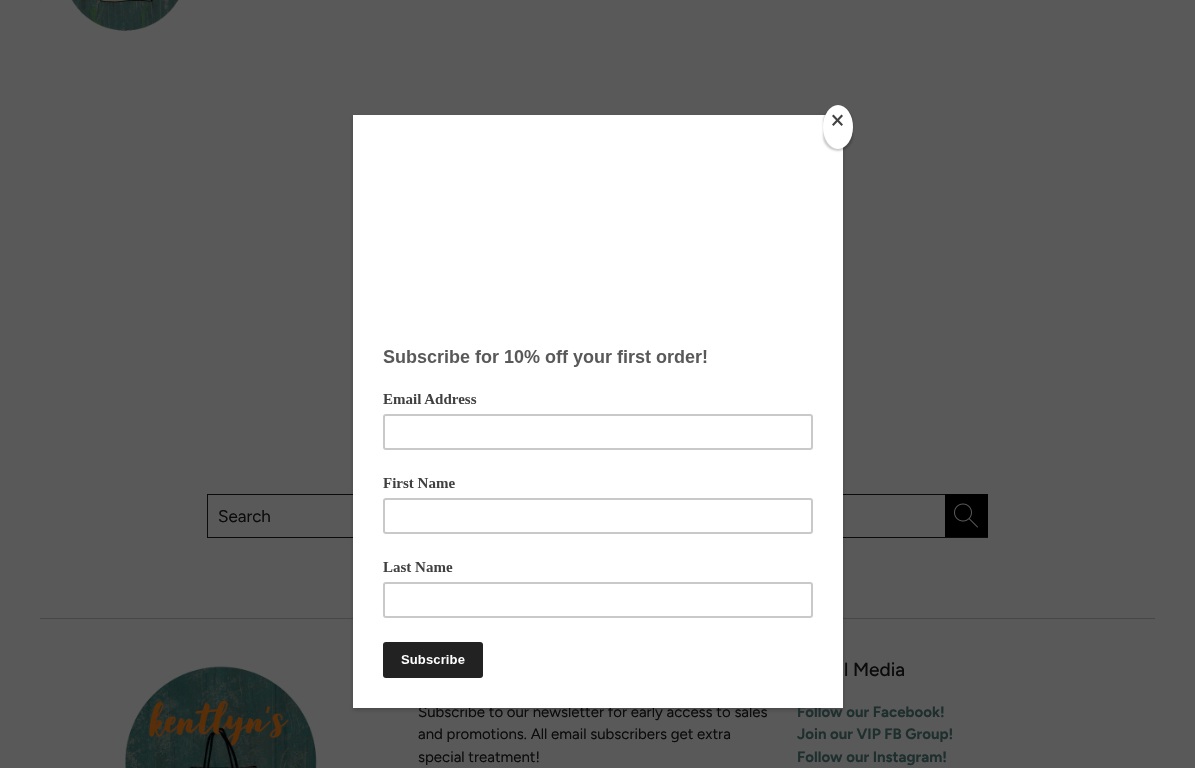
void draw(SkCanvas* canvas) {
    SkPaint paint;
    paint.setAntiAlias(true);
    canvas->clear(0xFF595959);
    canvas->drawImageRect(SkImages::DeferredFromEncodedData(SkData::MakeFromFileName("img1.png")), SkRect::MakeXYWH(40, 0, 139, 31), SkSamplingOptions());
    paint.setStyle(SkPaint::kStroke_Style);
    paint.setStrokeWidth(1);
    paint.setColor(0xFF0B0B0C);
    canvas->drawRect(SkRect::MakeXYWH(207.5f, 494.5f, 780, 43), paint);
    SkFont font1(fontMgr->matchFamilyStyle("Figtree", SkFontStyle::Normal()), 17);
    font1.setSubpixel(true);
    paint.setStyle(SkPaint::kFill_Style);
    canvas->drawString("Search", 218, 522, font1, paint);
    paint.setColor(0xFF000000);
    canvas->drawRect(SkRect::MakeXYWH(945, 494, 43, 43), paint);
    canvas->drawImageRect(SkImages::DeferredFromEncodedData(SkData::MakeFromFileName("img2.png")), SkRect::MakeXYWH(954, 503, 24, 25), SkSamplingOptions());
    paint.setColor(0xFF474747);
    canvas->drawRect(SkRect::MakeXYWH(40, 618, 1115, 1), paint);
    paint.setColor(0x33000000);
    paint.setMaskFilter(SkMaskFilter::MakeBlur(kNormal_SkBlurStyle, 2));
    canvas->drawRect(SkRect::MakeXYWH(353, 117, 490, 593), paint);
    paint.setMaskFilter(nullptr);
    SkFont font2(fontMgr->matchFamilyStyle("Figtree", SkFontStyle::Normal()), 15);
    font2.setSubpixel(true);
    paint.setColor(0xFF0B0B0C);
    canvas->drawString("Subscribe to our newsletter for early access to sales", 418, 717, font2, paint);
    SkFont font3(fontMgr->matchFamilyStyle("Figtree", SkFontStyle::Bold()), 15);
    font3.setSubpixel(true);
    paint.setColor(0xFF1E2F2E);
    canvas->drawString("Follow our Facebook!", 797, 717, font3, paint);
    canvas->drawImageRect(SkImages::DeferredFromEncodedData(SkData::MakeFromFileName("img3.png")), SkRect::MakeXYWH(353, 115, 490, 593), SkSamplingOptions());
    paint.setColor(0x33000000);
    paint.setMaskFilter(SkMaskFilter::MakeBlur(kNormal_SkBlurStyle, 1));
    canvas->drawRoundRect(SkRect::MakeXYWH(823, 107, 30, 44), 15, 15, paint);
    paint.setMaskFilter(nullptr);
    paint.setColor(0xFFFFFFFF);
    canvas->drawOval(SkRect::MakeXYWH(823, 105, 30, 44), paint);
    paint.setColor(0xFF414141);
    canvas->drawPath(SkPathBuilder().moveTo(841.5f, 114.5f).lineTo(843, 116).lineTo(833.5f, 126).lineTo(832, 124.5f).close().detach(), paint);
    canvas->drawPath(SkPathBuilder().moveTo(832, 116).lineTo(833.5f, 114.5f).lineTo(843, 124.5f).lineTo(841.5f, 126).close().detach(), paint);
    canvas->drawImageRect(SkImages::DeferredFromEncodedData(SkData::MakeFromFileName("img4.png")), SkRect::MakeXYWH(125, 666, 192, 102), SkSamplingOptions());
    paint.setColor(0xFF0B0B0C);
    canvas->drawString("and promotions. All email subscribers get extra", 418, 739, font2, paint);
    canvas->drawString("special treatment!", 418, 762, font2, paint);
    SkFont font4(fontMgr->matchFamilyStyle("Figtree", SkFontStyle(500, SkFontStyle::kNormal_Width, SkFontStyle::kUpright_Slant)), 19);
    font4.setSubpixel(true);
    canvas->drawString("l Media", 844, 676, font4, paint);
    paint.setColor(0xFF1E2F2E);
    canvas->drawString("Join our VIP FB Group!", 797, 739, font3, paint);
    canvas->drawString("Follow our Instagram!", 797, 762, font3, paint);
}
